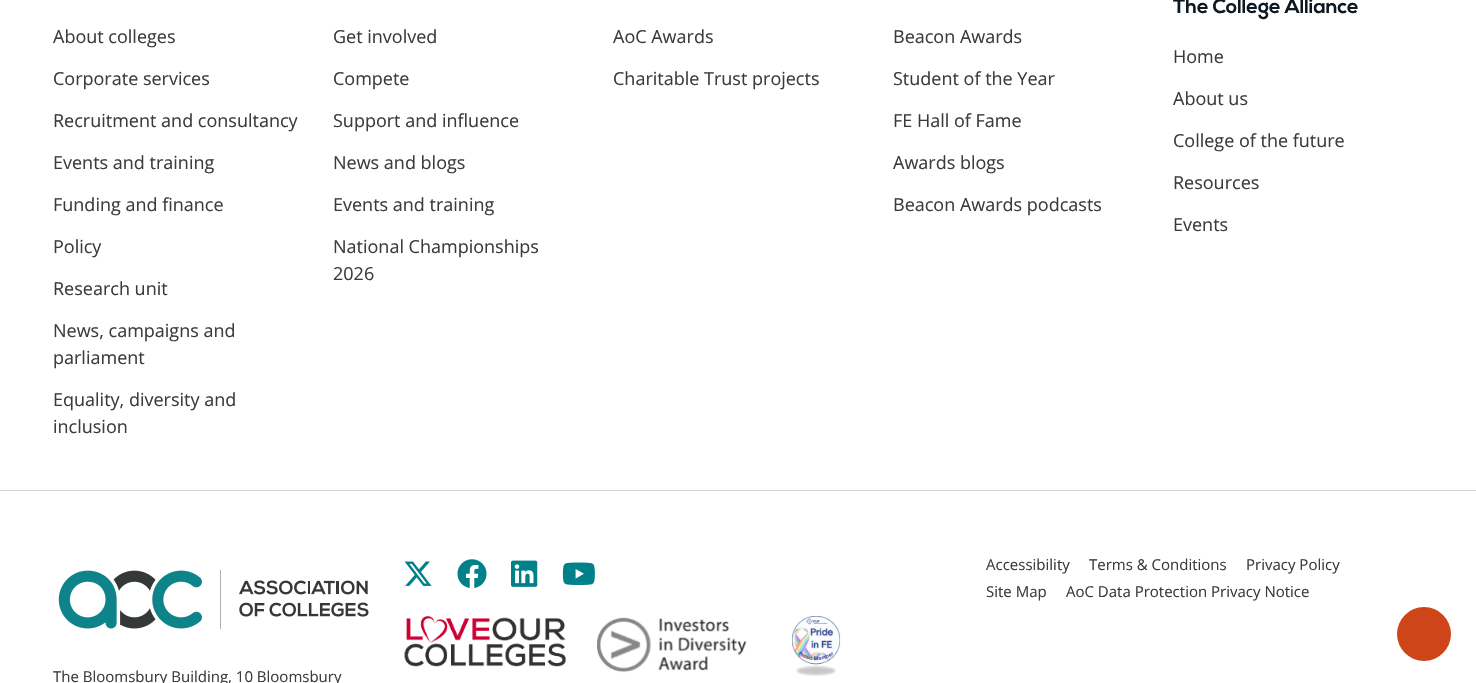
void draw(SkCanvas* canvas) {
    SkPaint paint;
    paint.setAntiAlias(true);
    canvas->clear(0xFFFFFFFF);
    SkFont font1(fontMgr->matchFamilyStyle("Open Sans", SkFontStyle::Normal()), 18);
    font1.setSubpixel(true);
    paint.setColor(0xFF3C3C3B);
    canvas->drawString("About colleges", 53, 43, font1, paint);
    canvas->drawString("Corporate services", 53, 85, font1, paint);
    canvas->drawString("Recruitment and consultancy", 53, 127, font1, paint);
    canvas->drawString("Events and training", 53, 169, font1, paint);
    canvas->drawString("Funding and finance", 53, 211, font1, paint);
    canvas->drawString("Policy", 53, 253, font1, paint);
    canvas->drawString("Research unit", 53, 295, font1, paint);
    canvas->drawString("News, campaigns and", 53, 337, font1, paint);
    canvas->drawString("parliament", 53, 364, font1, paint);
    canvas->drawString("Equality, diversity and", 53, 406, font1, paint);
    canvas->drawString("inclusion", 53, 433, font1, paint);
    canvas->drawString("Get involved", 333, 43, font1, paint);
    canvas->drawString("Compete", 333, 85, font1, paint);
    canvas->drawString("Support and influence", 333, 127, font1, paint);
    canvas->drawString("News and blogs", 333, 169, font1, paint);
    canvas->drawString("Events and training", 333, 211, font1, paint);
    canvas->drawString("National Championships", 333, 253, font1, paint);
    canvas->drawString("2026", 333, 280, font1, paint);
    canvas->drawString("AoC Awards", 613, 43, font1, paint);
    canvas->drawString("Charitable Trust projects", 613, 85, font1, paint);
    canvas->drawString("Beacon Awards", 893, 43, font1, paint);
    canvas->drawString("Student of the Year", 893, 85, font1, paint);
    canvas->drawString("FE Hall of Fame", 893, 127, font1, paint);
    canvas->drawString("Awards blogs", 893, 169, font1, paint);
    canvas->drawString("Beacon Awards podcasts", 893, 211, font1, paint);
    SkFont font2(fontMgr->matchFamilyStyle("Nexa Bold", SkFontStyle::Bold()), 20);
    font2.setSubpixel(true);
    paint.setColor(0xFF0D1821);
    canvas->drawString("The College Alliance", 1173, 13, font2, paint);
    paint.setColor(0xFF3C3C3B);
    canvas->drawString("Home", 1173, 63, font1, paint);
    canvas->drawString("About us", 1173, 105, font1, paint);
    canvas->drawString("College of the future", 1173, 147, font1, paint);
    canvas->drawString("Resources", 1173, 189, font1, paint);
    canvas->drawString("Events", 1173, 231, font1, paint);
    paint.setColor(0xFFD3D4D5);
    canvas->drawRect(SkRect::MakeXYWH(0, 490, 1476, 1), paint);
    canvas->drawImageRect(SkImages::DeferredFromEncodedData(SkData::MakeFromFileName("img1.png")), SkRect::MakeXYWH(58, 570, 311, 59), SkSamplingOptions());
    SkFont font3(fontMgr->matchFamilyStyle("Open Sans", SkFontStyle::Normal()), 15);
    font3.setSubpixel(true);
    paint.setColor(0xFF3C3C3B);
    canvas->drawString("The Bloomsbury Building, 10 Bloomsbury", 53, 682, font3, paint);
    canvas->drawImageRect(SkImages::DeferredFromEncodedData(SkData::MakeFromFileName("img2.png")), SkRect::MakeXYWH(404, 561, 28, 25), SkSamplingOptions());
    canvas->drawImageRect(SkImages::DeferredFromEncodedData(SkData::MakeFromFileName("img3.png")), SkRect::MakeXYWH(457, 559, 30, 29), SkSamplingOptions());
    canvas->drawImageRect(SkImages::DeferredFromEncodedData(SkData::MakeFromFileName("img4.png")), SkRect::MakeXYWH(511, 560, 27, 27), SkSamplingOptions());
    canvas->drawImageRect(SkImages::DeferredFromEncodedData(SkData::MakeFromFileName("img5.png")), SkRect::MakeXYWH(562, 562, 33, 23), SkSamplingOptions());
    canvas->drawImageRect(SkImages::DeferredFromEncodedData(SkData::MakeFromFileName("img6.png")), SkRect::MakeXYWH(404, 616, 163, 51), SkSamplingOptions());
    canvas->drawImageRect(SkImages::DeferredFromEncodedData(SkData::MakeFromFileName("img7.png")), SkRect::MakeXYWH(597, 617, 150, 56), SkSamplingOptions());
    canvas->drawImageRect(SkImages::DeferredFromEncodedData(SkData::MakeFromFileName("img8.png")), SkRect::MakeXYWH(792, 616, 49, 60), SkSamplingOptions());
    canvas->drawString("Accessibility", 986, 570, font3, paint);
    canvas->drawString("Terms & Conditions", 1089, 570, font3, paint);
    canvas->drawString("Privacy Policy", 1246, 570, font3, paint);
    canvas->drawString("Site Map", 986, 597, font3, paint);
    canvas->drawString("AoC Data Protection Privacy Notice", 1066, 597, font3, paint);
    paint.setColor(0xFFCD4518);
    canvas->drawCircle(1424, 634, 27, paint);
}
